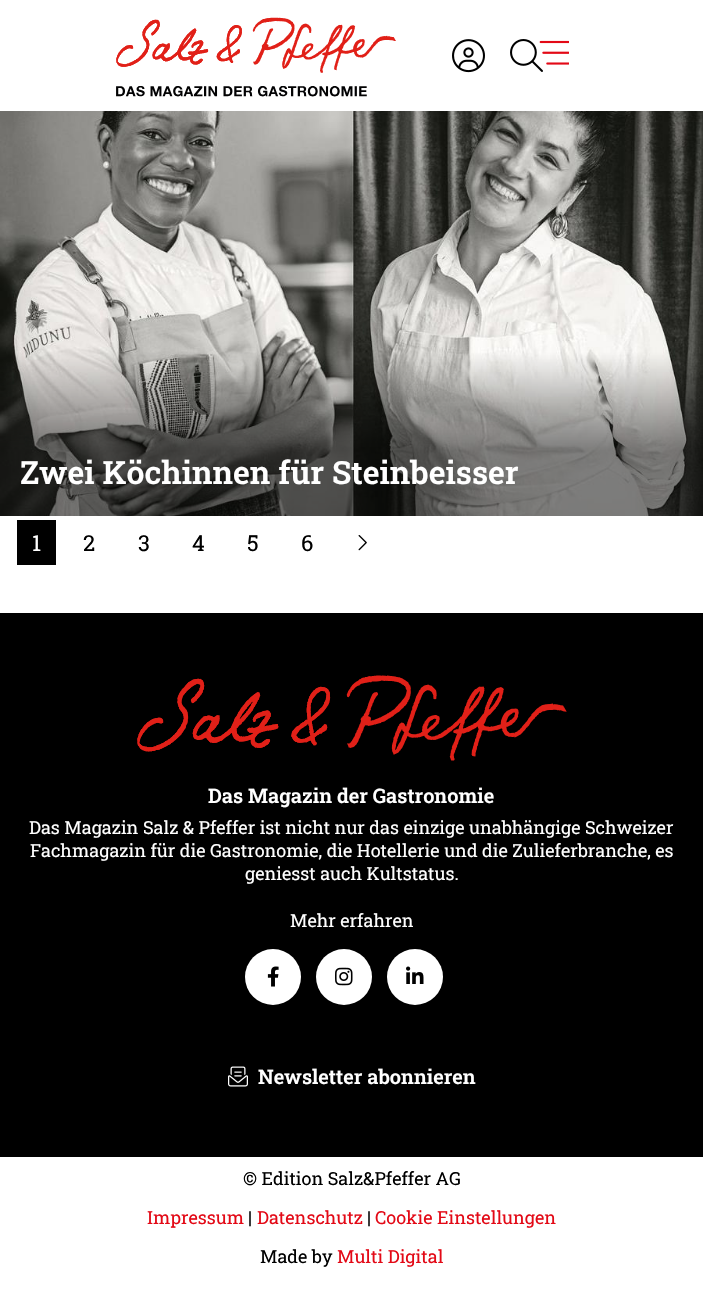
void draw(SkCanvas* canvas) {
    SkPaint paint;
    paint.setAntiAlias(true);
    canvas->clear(0xFFFFFFFF);
    canvas->drawImageRect(SkImages::DeferredFromEncodedData(SkData::MakeFromFileName("img1.png")), SkRect::MakeXYWH(116, 17, 280, 80), SkSamplingOptions());
    canvas->drawImageRect(SkImages::DeferredFromEncodedData(SkData::MakeFromFileName("img2.png")), SkRect::MakeXYWH(452, 39, 33, 34), SkSamplingOptions());
    canvas->drawImageRect(SkImages::DeferredFromEncodedData(SkData::MakeFromFileName("img3.png")), SkRect::MakeXYWH(510, 39, 59, 33), SkSamplingOptions());
    canvas->drawImageRect(SkImages::DeferredFromEncodedData(SkData::MakeFromFileName("img4.png")), SkRect::MakeXYWH(0, 111, 703, 405), SkSamplingOptions());
    SkFont font1(fontMgr->matchFamilyStyle("Roboto Slab", SkFontStyle(600, SkFontStyle::kNormal_Width, SkFontStyle::kUpright_Slant)), 32);
    font1.setSubpixel(true);
    paint.setColor(0xFFFFFFFF);
    canvas->drawString("Zwei Köchinnen für Steinbeisser", 20, 484, font1, paint);
    paint.setColor(0xFF000000);
    canvas->drawRect(SkRect::MakeXYWH(17, 520, 39, 45), paint);
    SkFont font2(fontMgr->matchFamilyStyle("Roboto Slab", SkFontStyle::Normal()), 22);
    font2.setSubpixel(true);
    paint.setColor(0xFFFFFFFF);
    canvas->drawString("1", 32, 551, font2, paint);
    paint.setColor(0xFF000000);
    canvas->drawString("2", 83, 551, font2, paint);
    canvas->drawString("3", 138, 551, font2, paint);
    canvas->drawString("4", 192, 551, font2, paint);
    canvas->drawString("5", 247, 551, font2, paint);
    canvas->drawString("6", 301, 551, font2, paint);
    canvas->drawImageRect(SkImages::DeferredFromEncodedData(SkData::MakeFromFileName("img5.png")), SkRect::MakeXYWH(358, 535, 9, 16), SkSamplingOptions());
    canvas->drawRect(SkRect::MakeXYWH(0, 613, 703, 544), paint);
    canvas->drawImageRect(SkImages::DeferredFromEncodedData(SkData::MakeFromFileName("img6.png")), SkRect::MakeXYWH(137, 675, 430, 86), SkSamplingOptions());
    SkFont font3(fontMgr->matchFamilyStyle("Roboto Slab", SkFontStyle(600, SkFontStyle::kNormal_Width, SkFontStyle::kUpright_Slant)), 20);
    font3.setSubpixel(true);
    paint.setColor(0xFFFFFFFF);
    canvas->drawString("Das Magazin der Gastronomie", 208, 803, font3, paint);
    SkFont font4(fontMgr->matchFamilyStyle("Roboto Slab", SkFontStyle::Normal()), 18);
    font4.setSubpixel(true);
    canvas->drawString("Das Magazin Salz & Pfeffer ist nicht nur das einzige unabhängige Schweizer", 29, 834, font4, paint);
    canvas->drawString("Fachmagazin für die Gastronomie, die Hotellerie und die Zulieferbranche, es", 30, 857, font4, paint);
    canvas->drawString("geniesst auch Kultstatus.", 245, 880, font4, paint);
    canvas->drawString("Mehr erfahren", 290, 927, font4, paint);
    canvas->drawCircle(273, 977, 28, paint);
    canvas->drawImageRect(SkImages::DeferredFromEncodedData(SkData::MakeFromFileName("img7.png")), SkRect::MakeXYWH(267, 966, 12, 21), SkSamplingOptions());
    canvas->drawCircle(344, 977, 28, paint);
    canvas->drawImageRect(SkImages::DeferredFromEncodedData(SkData::MakeFromFileName("img8.png")), SkRect::MakeXYWH(335, 967, 18, 19), SkSamplingOptions());
    canvas->drawCircle(415, 977, 28, paint);
    canvas->drawImageRect(SkImages::DeferredFromEncodedData(SkData::MakeFromFileName("img9.png")), SkRect::MakeXYWH(406, 966, 18, 18), SkSamplingOptions());
    canvas->drawImageRect(SkImages::DeferredFromEncodedData(SkData::MakeFromFileName("img10.png")), SkRect::MakeXYWH(228, 1066, 20, 21), SkSamplingOptions());
    canvas->drawString("Newsletter abonnieren", 258, 1084, font3, paint);
    paint.setColor(0xFF000000);
    canvas->drawString("© Edition Salz&Pfeffer AG", 243, 1185, font4, paint);
    paint.setColor(0xFFE30916);
    canvas->drawString("Impressum", 147, 1224, font4, paint);
    paint.setColor(0xFF000000);
    canvas->drawString("|", 248, 1224, font4, paint);
    paint.setColor(0xFFE30916);
    canvas->drawString("Datenschutz", 257, 1224, font4, paint);
    paint.setColor(0xFF000000);
    canvas->drawString("|", 367, 1224, font4, paint);
    paint.setColor(0xFFE30916);
    canvas->drawString("Cookie Einstellungen", 375, 1224, font4, paint);
    paint.setColor(0xFF000000);
    canvas->drawString("Made by", 260, 1263, font4, paint);
    paint.setColor(0xFFE30916);
    canvas->drawString("Multi Digital", 337, 1263, font4, paint);
}
